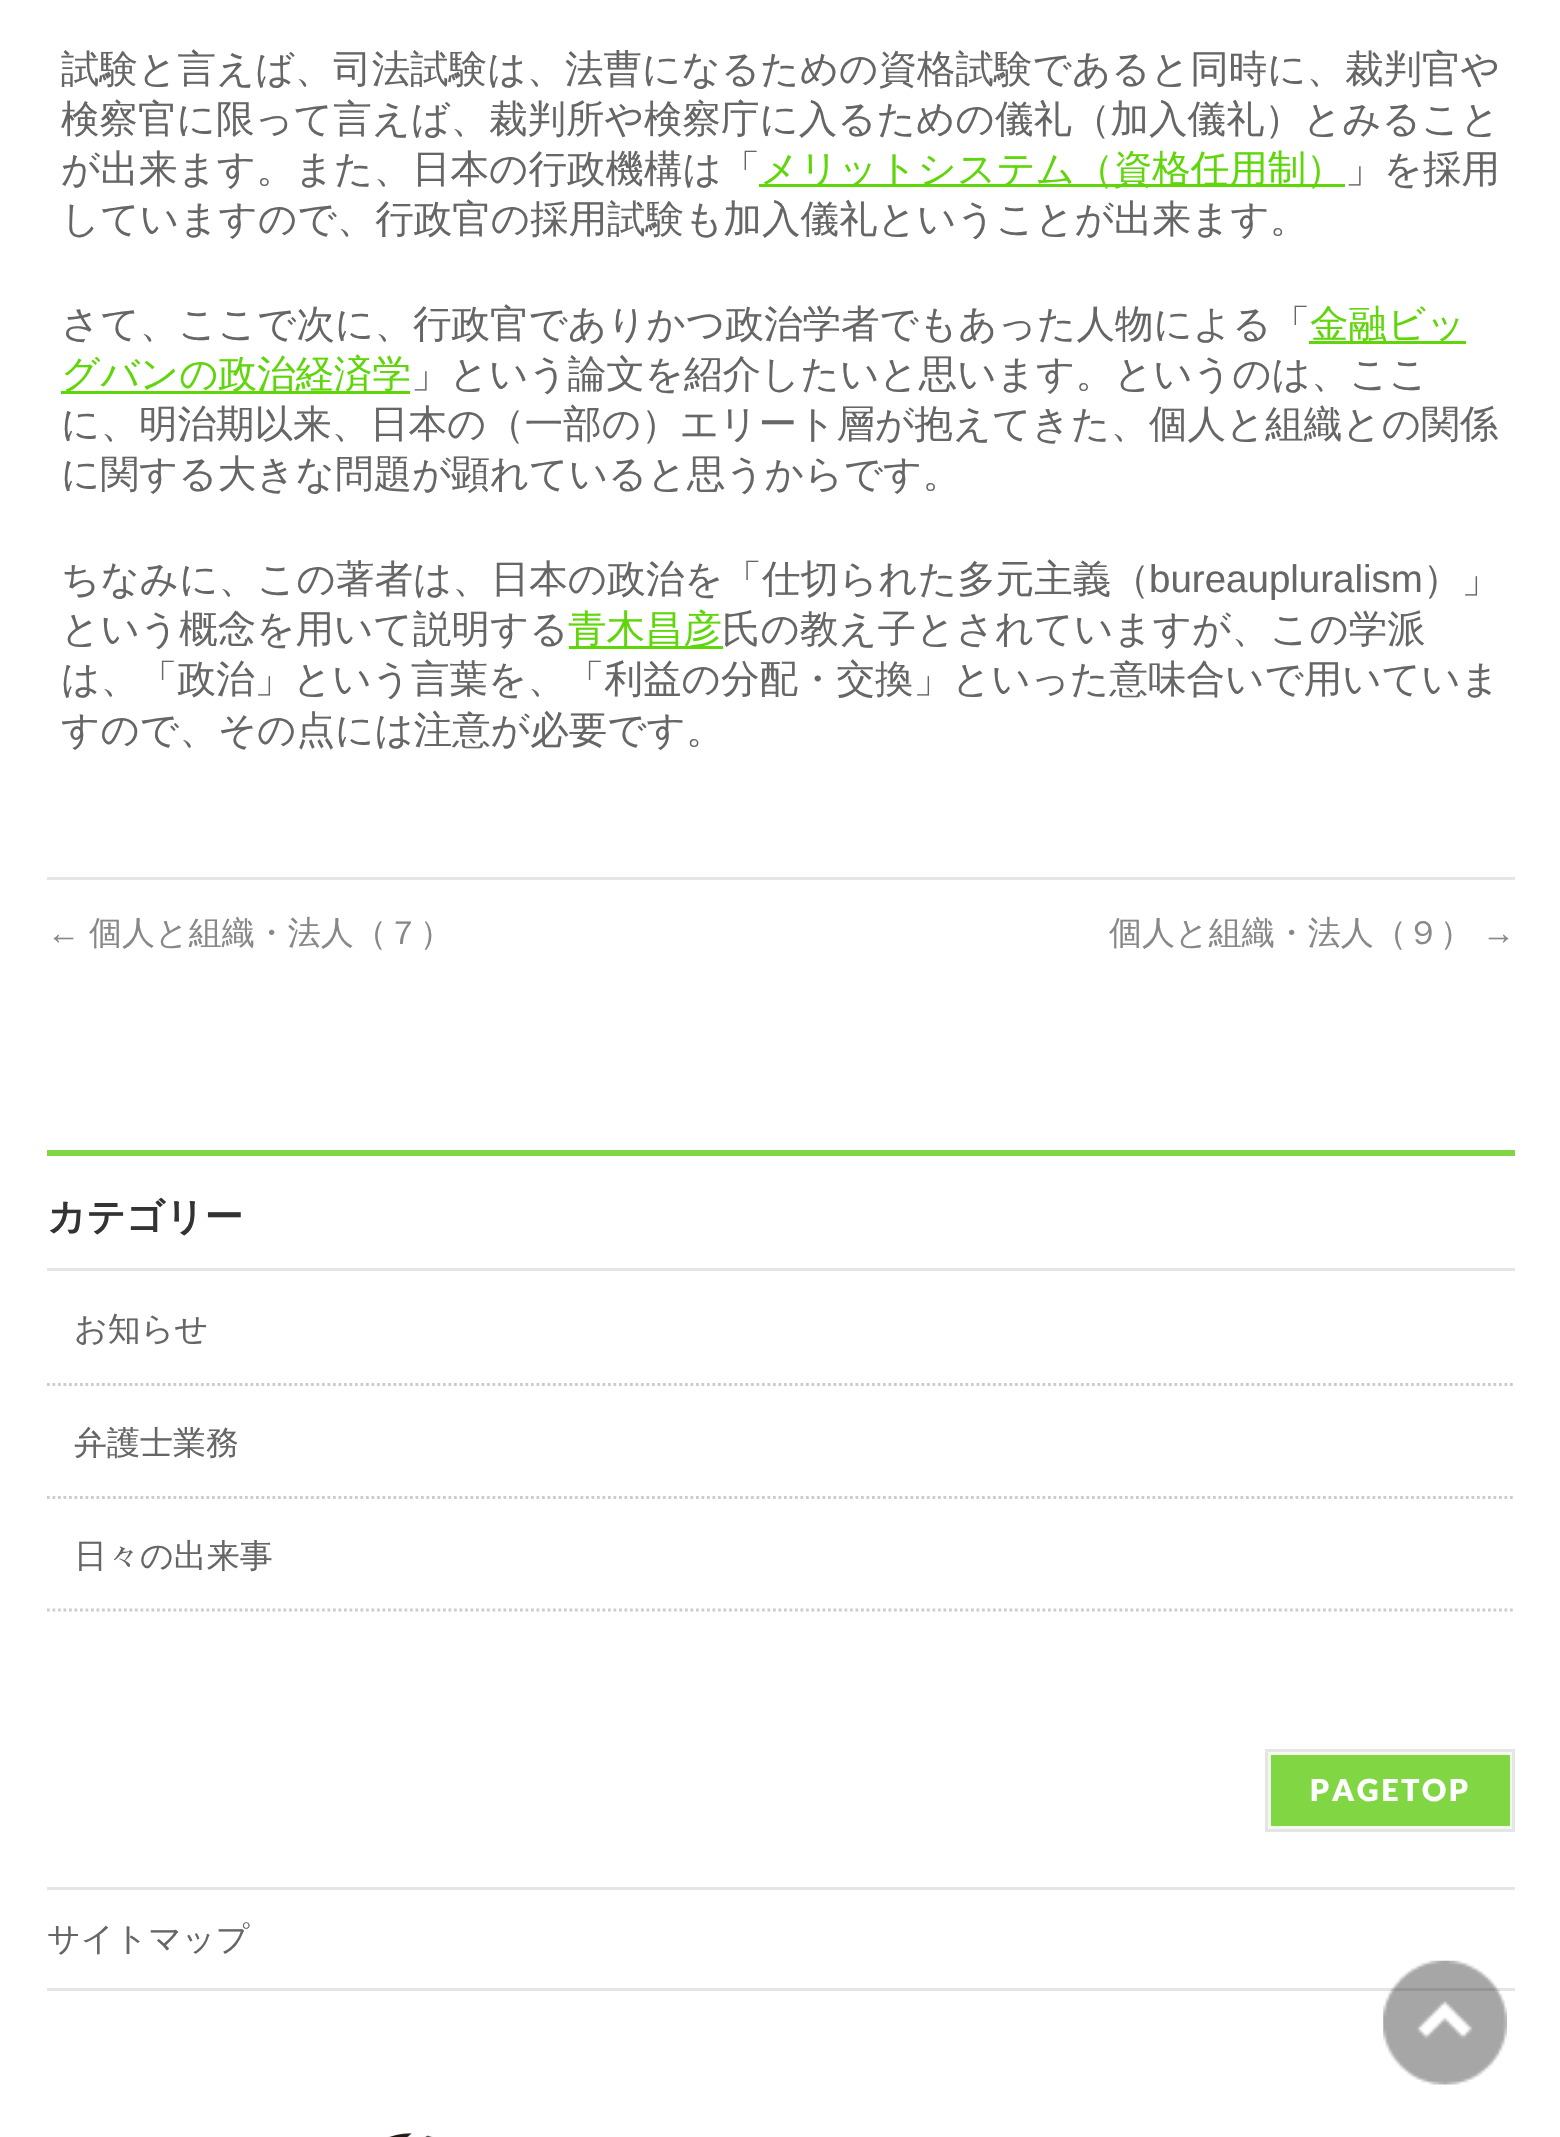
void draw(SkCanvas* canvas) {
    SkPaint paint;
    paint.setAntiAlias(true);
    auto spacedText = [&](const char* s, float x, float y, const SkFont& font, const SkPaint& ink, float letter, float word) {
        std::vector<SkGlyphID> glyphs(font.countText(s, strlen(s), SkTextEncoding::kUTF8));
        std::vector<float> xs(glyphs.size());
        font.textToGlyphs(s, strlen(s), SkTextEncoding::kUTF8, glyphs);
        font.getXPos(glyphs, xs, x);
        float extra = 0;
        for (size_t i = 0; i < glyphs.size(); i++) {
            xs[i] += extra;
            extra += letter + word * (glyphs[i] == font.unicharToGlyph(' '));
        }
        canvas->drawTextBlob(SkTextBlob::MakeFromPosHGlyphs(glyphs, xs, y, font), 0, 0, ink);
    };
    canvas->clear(0xFFFFFFFF);
    SkFont font1(fontMgr->matchFamilyStyle("WenQuanYi Zen Hei", SkFontStyle(500, SkFontStyle::kNormal_Width, SkFontStyle::kUpright_Slant)), 38.5f);
    font1.setSubpixel(true);
    paint.setColor(0xFF666666);
    canvas->drawString("試験と言えば、司法試験は、法曹になるための資格試験であると同時に、裁判官や", 61, 82, font1, paint);
    canvas->drawString("検察官に限って言えば、裁判所や検察庁に入るための儀礼（加入儀礼）とみること", 61, 132, font1, paint);
    canvas->drawString("が出来ます。また、日本の行政機構は「", 61, 182, font1, paint);
    paint.setColor(0xFF5FD60A);
    canvas->drawRect(SkRect::MakeXYWH(759, 184, 586, 3), paint);
    canvas->drawString("メリットシステム（資格任用制）", 760, 182, font1, paint);
    paint.setColor(0xFF666666);
    canvas->drawString("」を採用", 1345, 182, font1, paint);
    canvas->drawString("していますので、行政官の採用試験も加入儀礼ということが出来ます。", 61, 232, font1, paint);
    canvas->drawString("さて、ここで次に、行政官でありかつ政治学者でもあった人物による「", 61, 337, font1, paint);
    paint.setColor(0xFF5FD60A);
    canvas->drawRect(SkRect::MakeXYWH(1309, 341, 157, 3), paint);
    canvas->drawString("金融ビッ", 1310, 337, font1, paint);
    canvas->drawRect(SkRect::MakeXYWH(61, 391, 349, 3), paint);
    canvas->drawString("グバンの政治経済学", 61, 387, font1, paint);
    paint.setColor(0xFF666666);
    canvas->drawString("」という論文を紹介したいと思います。というのは、ここ", 411, 387, font1, paint);
    canvas->drawString("に、明治期以来、日本の（一部の）エリート層が抱えてきた、個人と組織との関係", 61, 437, font1, paint);
    canvas->drawString("に関する大きな問題が顕れていると思うからです。", 61, 487, font1, paint);
    canvas->drawString("ちなみに、この著者は、日本の政治を「仕切られた多元主義（", 61, 592, font1, paint);
    SkFont font2(fontMgr->matchFamilyStyle("Liberation Sans", SkFontStyle::Normal()), 38.5f);
    font2.setSubpixel(true);
    canvas->drawString("bureaupluralism", 1149, 592, font2, paint);
    canvas->drawString("）」", 1423, 592, font1, paint);
    canvas->drawString("という概念を用いて説明する", 61, 642, font1, paint);
    paint.setColor(0xFF5FD60A);
    canvas->drawRect(SkRect::MakeXYWH(569, 646, 154, 3), paint);
    canvas->drawString("青木昌彦", 568, 642, font1, paint);
    paint.setColor(0xFF666666);
    canvas->drawString("氏の教え子とされていますが、この学派", 722, 642, font1, paint);
    canvas->drawString("は、「政治」という言葉を、「利益の分配・交換」といった意味合いで用いていま", 61, 692, font1, paint);
    canvas->drawString("すので、その点には注意が必要です。", 61, 743, font1, paint);
    paint.setColor(0xFFE5E5E5);
    canvas->drawRect(SkRect::MakeXYWH(47, 877, 1468, 3), paint);
    SkFont font3(fontMgr->matchFamilyStyle("Liberation Sans", SkFontStyle::Normal()), 33);
    font3.setSubpixel(true);
    paint.setColor(0xFF888888);
    canvas->drawString("←", 47, 944, font3, paint);
    SkFont font4(fontMgr->matchFamilyStyle("WenQuanYi Zen Hei", SkFontStyle(500, SkFontStyle::kNormal_Width, SkFontStyle::kUpright_Slant)), 33);
    font4.setSubpixel(true);
    canvas->drawString("個人と組織・法人（７）", 89, 944, font4, paint);
    canvas->drawString("個人と組織・法人（９）", 1109, 944, font4, paint);
    canvas->drawString("→", 1482, 944, font3, paint);
    paint.setColor(0xFF81D644);
    canvas->drawRect(SkRect::MakeXYWH(47, 1150, 1468, 6), paint);
    paint.setColor(0xFFE5E5E5);
    canvas->drawRect(SkRect::MakeXYWH(47, 1268, 1468, 3), paint);
    SkFont font5(fontMgr->matchFamilyStyle("WenQuanYi Zen Hei", SkFontStyle::Bold()), 38.5f);
    font5.setSubpixel(true);
    paint.setColor(0xFF333333);
    canvas->drawString("カテゴリー", 47, 1230, font5, paint);
    paint.setStyle(SkPaint::kStroke_Style);
    paint.setStrokeWidth(2.8f);
    paint.setColor(0xFFCCCCCC);
    paint.setPathEffect(SkDashPathEffect::Make({{2.75f, 2.75f}}, 0));
    canvas->drawPath(SkPathBuilder().moveTo(47, 1384.5f).lineTo(1515, 1384.5f).detach(), paint);
    paint.setPathEffect(nullptr);
    paint.setStyle(SkPaint::kFill_Style);
    paint.setColor(0xFF666666);
    canvas->drawString("お知らせ", 74, 1340, font4, paint);
    paint.setStyle(SkPaint::kStroke_Style);
    paint.setColor(0xFFCCCCCC);
    paint.setPathEffect(SkDashPathEffect::Make({{2.75f, 2.75f}}, 0));
    canvas->drawPath(SkPathBuilder().moveTo(47, 1497.5f).lineTo(1515, 1497.5f).detach(), paint);
    paint.setPathEffect(nullptr);
    paint.setStyle(SkPaint::kFill_Style);
    paint.setColor(0xFF666666);
    canvas->drawString("弁護士業務", 74, 1454, font4, paint);
    paint.setStyle(SkPaint::kStroke_Style);
    paint.setColor(0xFFCCCCCC);
    paint.setPathEffect(SkDashPathEffect::Make({{2.75f, 2.75f}}, 0));
    canvas->drawPath(SkPathBuilder().moveTo(47, 1610).lineTo(1515, 1610).detach(), paint);
    paint.setPathEffect(nullptr);
    paint.setStyle(SkPaint::kFill_Style);
    paint.setColor(0xFF666666);
    canvas->drawString("日々の出来事", 74, 1567, font4, paint);
    paint.setColor(0xFF81D644);
    canvas->drawRect(SkRect::MakeXYWH(1269.5f, 1753.5f, 242, 74), paint);
    paint.setStyle(SkPaint::kStroke_Style);
    paint.setStrokeWidth(3);
    paint.setColor(0xFFF2FBEC);
    canvas->drawRect(SkRect::MakeXYWH(1269.5f, 1753.5f, 242, 74), paint);
    paint.setColor(0xFFE5E5E5);
    canvas->drawRect(SkRect::MakeXYWH(1266.5f, 1750.5f, 247, 80), paint);
    SkFont font6(fontMgr->matchFamilyStyle("Lato", SkFontStyle(900, SkFontStyle::kNormal_Width, SkFontStyle::kUpright_Slant)), 30.25f);
    font6.setSubpixel(true);
    paint.setStyle(SkPaint::kFill_Style);
    paint.setColor(0xFFFFFFFF);
    spacedText("PAGETOP", 1310, 1801, font6, paint, 2.75f, 0);
    paint.setColor(0xFFE5E5E5);
    canvas->drawRect(SkRect::MakeXYWH(47, 1887, 1468, 3), paint);
    canvas->drawRect(SkRect::MakeXYWH(47, 1988, 1468, 3), paint);
    paint.setColor(0xFF666666);
    canvas->drawString("サイトマップ", 47, 1950, font4, paint);
    canvas->drawImageRect(SkImages::DeferredFromEncodedData(SkData::MakeFromFileName("img1.png")), SkRect::MakeXYWH(388, 2133, 45, 4), SkSamplingOptions());
    canvas->drawImageRect(SkImages::DeferredFromEncodedData(SkData::MakeFromFileName("img2.png")), SkRect::MakeXYWH(1383, 1960, 124, 125), SkSamplingOptions());
}
